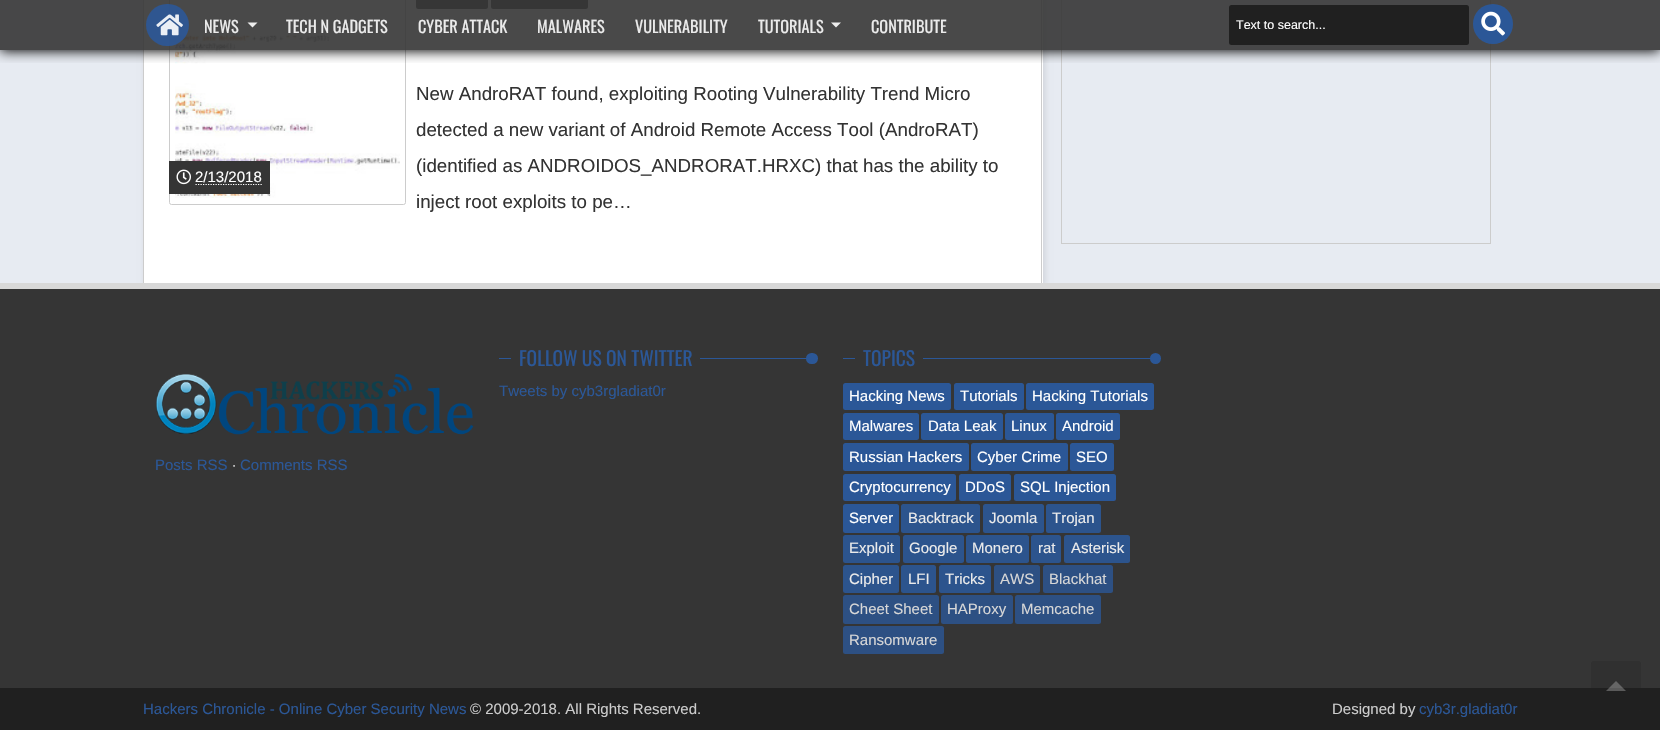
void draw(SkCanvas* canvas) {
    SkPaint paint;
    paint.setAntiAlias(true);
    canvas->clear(0xFFE7EBF2);
    paint.setColor(0x1A000000);
    paint.setMaskFilter(SkMaskFilter::MakeBlur(kNormal_SkBlurStyle, 3));
    canvas->drawRect(SkRect::MakeXYWH(145, -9, 900, 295), paint);
    paint.setMaskFilter(nullptr);
    paint.setColor(0xFFFFFFFF);
    canvas->drawRect(SkRect::MakeXYWH(144, 0, 899, 283), paint);
    paint.setColor(0xFFCCCCCC);
    canvas->drawRect(SkRect::MakeXYWH(1041, 0, 1, 283), paint);
    canvas->drawRect(SkRect::MakeXYWH(143, 0, 1, 283), paint);
    paint.setStyle(SkPaint::kStroke_Style);
    paint.setStrokeWidth(1);
    canvas->drawRoundRect(SkRect::MakeXYWH(169.5f, -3.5f, 236, 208), 2, 2, paint);
    canvas->drawImageRect(SkImages::DeferredFromEncodedData(SkData::MakeFromFileName("img4.png")), SkRect::MakeXYWH(175, 33, 225, 165), SkSamplingOptions());
    paint.setStyle(SkPaint::kFill_Style);
    paint.setColor(0xFF353535);
    canvas->drawRoundRect(SkRect::MakeXYWH(416, -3, 72, 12), 2.5f, 2.5f, paint);
    canvas->drawRoundRect(SkRect::MakeXYWH(491, -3, 97, 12), 2.5f, 2.5f, paint);
    paint.setStyle(SkPaint::kStroke_Style);
    paint.setColor(0xFFCCCCCC);
    canvas->drawRect(SkRect::MakeXYWH(1061.5f, -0.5f, 429, 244), paint);
    canvas->save();
    canvas->clipRect(SkRect::MakeXYWH(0, 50, 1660, 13));
    paint.setStyle(SkPaint::kFill_Style);
    paint.setColor(0xFF000000);
    paint.setMaskFilter(SkMaskFilter::MakeBlur(kNormal_SkBlurStyle, 6));
    canvas->drawRect(SkRect::MakeXYWH(0, 1, 1660, 50), paint);
    paint.setMaskFilter(nullptr);
    canvas->restore();
    paint.setColor(0xE6353535);
    canvas->drawRect(SkRect::MakeXYWH(0, 0, 1660, 50), paint);
    paint.setColor(0xE62B5797);
    canvas->drawRoundRect(SkRect::MakeXYWH(146, 4, 43, 42), 21, 21, paint);
    canvas->drawImageRect(SkImages::DeferredFromEncodedData(SkData::MakeFromFileName("img1.png")), SkRect::MakeXYWH(156, 14, 27, 22), SkSamplingOptions());
    SkFont font1(fontMgr->matchFamilyStyle("Oswald", SkFontStyle::Normal()), 16.25f);
    font1.setSubpixel(true);
    paint.setColor(0xFFEBEBEB);
    canvas->drawString("NEWS", 204, 33, font1, paint);
    paint.setColor(0xFFEDEDED);
    canvas->drawPath(SkPathBuilder().moveTo(247.5f, 22.5f).lineTo(257.5f, 22.5f).lineTo(252.5f, 27.5f).close().detach(), paint);
    paint.setColor(0xFFEBEBEB);
    canvas->drawString("TECH N GADGETS", 286, 33, font1, paint);
    canvas->drawString("CYBER ATTACK", 418, 33, font1, paint);
    canvas->drawString("MALWARES", 537, 33, font1, paint);
    canvas->drawString("VULNERABILITY", 635, 33, font1, paint);
    canvas->drawString("TUTORIALS", 758, 33, font1, paint);
    paint.setColor(0xFFEDEDED);
    canvas->drawPath(SkPathBuilder().moveTo(831, 22.5f).lineTo(841, 22.5f).lineTo(836, 27.5f).close().detach(), paint);
    paint.setColor(0xFFEBEBEB);
    canvas->drawString("CONTRIBUTE", 871, 33, font1, paint);
    paint.setColor(0xFF202020);
    canvas->drawRoundRect(SkRect::MakeXYWH(1229, 5, 240, 40), 2.5f, 2.5f, paint);
    SkFont font2(fontMgr->matchFamilyStyle("Liberation Sans", SkFontStyle::Normal()), 12.5f);
    font2.setSubpixel(true);
    paint.setColor(0xFFFFFFFF);
    canvas->drawString("Text to search...", 1236, 29, font2, paint);
    paint.setColor(0xFF2B5797);
    canvas->drawCircle(1493, 24, 20, paint);
    canvas->drawImageRect(SkImages::DeferredFromEncodedData(SkData::MakeFromFileName("img2.png")), SkRect::MakeXYWH(1481, 11, 24, 25), SkSamplingOptions());
    paint.setColor(0xFF353535);
    canvas->drawRect(SkRect::MakeXYWH(169, 161, 101, 33), paint);
    canvas->drawImageRect(SkImages::DeferredFromEncodedData(SkData::MakeFromFileName("img3.png")), SkRect::MakeXYWH(176, 169, 15, 16), SkSamplingOptions());
    SkFont font3(fontMgr->matchFamilyStyle("Liberation Sans", SkFontStyle::Normal()), 15);
    font3.setSubpixel(true);
    paint.setColor(0xFFFFFFFF);
    canvas->drawString("2/13/2018", 195, 182, font3, paint);
    paint.setStyle(SkPaint::kStroke_Style);
    paint.setStrokeWidth(1.2f);
    paint.setPathEffect(SkDashPathEffect::Make({{1.25f, 1.25f}}, 0));
    canvas->drawPath(SkPathBuilder().moveTo(195.5f, 184.5f).lineTo(262, 184.5f).detach(), paint);
    paint.setPathEffect(nullptr);
    SkFont font4(fontMgr->matchFamilyStyle("Liberation Sans", SkFontStyle::Normal()), 18.75f);
    font4.setSubpixel(true);
    paint.setStyle(SkPaint::kFill_Style);
    paint.setColor(0xFF333333);
    canvas->drawString("New AndroRAT found, exploiting Rooting Vulnerability Trend Micro", 416, 100, font4, paint);
    canvas->drawString("detected a new variant of Android Remote Access Tool (AndroRAT)", 416, 136, font4, paint);
    canvas->drawString("(identified as ANDROIDOS_ANDRORAT.HRXC) that has the ability to", 416, 172, font4, paint);
    canvas->drawString("inject root exploits to pe…", 416, 208, font4, paint);
    paint.setColor(0xFFD8D8D8);
    canvas->drawRect(SkRect::MakeXYWH(0, 283, 1660, 6), paint);
    paint.setColor(0xFF353535);
    canvas->drawRect(SkRect::MakeXYWH(0, 289, 1660, 399), paint);
    canvas->drawImageRect(SkImages::DeferredFromEncodedData(SkData::MakeFromFileName("img5.png")), SkRect::MakeXYWH(156, 374, 318, 61), SkSamplingOptions());
    paint.setColor(0xFF2B5797);
    canvas->drawString("Posts RSS", 155, 470, font3, paint);
    paint.setColor(0xFFCCCCCC);
    canvas->drawString("∙", 232, 470, font3, paint);
    paint.setColor(0xFF2B5797);
    canvas->drawString("Comments RSS", 240, 470, font3, paint);
    canvas->drawRect(SkRect::MakeXYWH(499, 358, 319, 1), paint);
    paint.setColor(0xFF353535);
    canvas->drawRect(SkRect::MakeXYWH(511, 358, 189, 1), paint);
    SkFont font5(fontMgr->matchFamilyStyle("Oswald", SkFontStyle::Normal()), 19.5f);
    font5.setSubpixel(true);
    paint.setColor(0xFF2B5797);
    canvas->drawString("FOLLOW US ON TWITTER", 519, 366, font5, paint);
    canvas->drawRoundRect(SkRect::MakeXYWH(806, 353, 12, 11), 5.5f, 5.5f, paint);
    canvas->drawString("Tweets by cyb3rgladiat0r", 499, 396, font3, paint);
    canvas->drawRect(SkRect::MakeXYWH(843, 358, 318, 1), paint);
    paint.setColor(0xFF353535);
    canvas->drawRect(SkRect::MakeXYWH(855, 358, 68, 1), paint);
    paint.setColor(0xFF2B5797);
    canvas->drawString("TOPICS", 863, 366, font5, paint);
    canvas->drawCircle(1155.5f, 358.5f, 5.5f, paint);
    canvas->drawRoundRect(SkRect::MakeXYWH(843, 383, 108, 27), 2.5f, 2.5f, paint);
    paint.setColor(0xFFFFFFFF);
    canvas->drawString("Hacking News", 849, 401, font3, paint);
    paint.setColor(0xFF2B5797);
    canvas->drawRoundRect(SkRect::MakeXYWH(954, 383, 70, 27), 2.5f, 2.5f, paint);
    paint.setColor(0xFFFFFFFF);
    canvas->drawString("Tutorials", 960, 401, font3, paint);
    paint.setColor(0xFF2B5797);
    canvas->drawRoundRect(SkRect::MakeXYWH(1026, 383, 128, 27), 2.5f, 2.5f, paint);
    paint.setColor(0xFFFFFFFF);
    canvas->drawString("Hacking Tutorials", 1032, 401, font3, paint);
    paint.setColor(0xFF2B5797);
    canvas->drawRoundRect(SkRect::MakeXYWH(843, 413, 76, 27), 2.5f, 2.5f, paint);
    paint.setColor(0xFFFFFFFF);
    canvas->drawString("Malwares", 849, 431, font3, paint);
    paint.setColor(0xFF2B5797);
    canvas->drawRoundRect(SkRect::MakeXYWH(921, 413, 82, 27), 2.5f, 2.5f, paint);
    paint.setColor(0xFFFFFFFF);
    canvas->drawString("Data Leak", 928, 431, font3, paint);
    paint.setColor(0xFF2B5797);
    canvas->drawRoundRect(SkRect::MakeXYWH(1005, 413, 49, 27), 2.5f, 2.5f, paint);
    paint.setColor(0xFFFFFFFF);
    canvas->drawString("Linux", 1011, 431, font3, paint);
    paint.setColor(0xFF2B5797);
    canvas->drawRoundRect(SkRect::MakeXYWH(1056, 413, 64, 27), 2.5f, 2.5f, paint);
    paint.setColor(0xFFFFFFFF);
    canvas->drawString("Android", 1062, 431, font3, paint);
    paint.setColor(0xFF2B5797);
    canvas->drawRoundRect(SkRect::MakeXYWH(843, 443, 126, 28), 2.5f, 2.5f, paint);
    paint.setColor(0xFFFFFFFF);
    canvas->drawString("Russian Hackers", 849, 462, font3, paint);
    paint.setColor(0xFF2B5797);
    canvas->drawRoundRect(SkRect::MakeXYWH(971, 443, 97, 28), 2.5f, 2.5f, paint);
    paint.setColor(0xFFFFFFFF);
    canvas->drawString("Cyber Crime", 977, 462, font3, paint);
    paint.setColor(0xFF2B5797);
    canvas->drawRoundRect(SkRect::MakeXYWH(1070, 443, 44, 28), 2.5f, 2.5f, paint);
    paint.setColor(0xFFFFFFFF);
    canvas->drawString("SEO", 1076, 462, font3, paint);
    paint.setColor(0xFF2B5797);
    canvas->drawRoundRect(SkRect::MakeXYWH(843, 474, 113, 27), 2.5f, 2.5f, paint);
    paint.setColor(0xFFFFFFFF);
    canvas->drawString("Cryptocurrency", 849, 492, font3, paint);
    paint.setColor(0xFF2B5797);
    canvas->drawRoundRect(SkRect::MakeXYWH(959, 474, 52, 27), 2.5f, 2.5f, paint);
    paint.setColor(0xFFFFFFFF);
    canvas->drawString("DDoS", 965, 492, font3, paint);
    paint.setColor(0xFF2B5797);
    canvas->drawRoundRect(SkRect::MakeXYWH(1014, 474, 102, 27), 2.5f, 2.5f, paint);
    paint.setColor(0xFFFFFFFF);
    canvas->drawString("SQL Injection", 1020, 492, font3, paint);
    paint.setColor(0xFF2B5797);
    canvas->drawRoundRect(SkRect::MakeXYWH(843, 504, 56, 29), 2.5f, 2.5f, paint);
    paint.setColor(0xFFFFFFFF);
    canvas->drawString("Server", 849, 523, font3, paint);
    paint.setColor(0xFF2C548D);
    canvas->drawRoundRect(SkRect::MakeXYWH(901, 504, 79, 29), 2.5f, 2.5f, paint);
    paint.setColor(0xFFEBEBEB);
    canvas->drawString("Backtrack", 908, 523, font3, paint);
    paint.setColor(0xFF2C548D);
    canvas->drawRoundRect(SkRect::MakeXYWH(983, 504, 61, 29), 2.5f, 2.5f, paint);
    paint.setColor(0xFFEBEBEB);
    canvas->drawString("Joomla", 989, 523, font3, paint);
    paint.setColor(0xFF2C548D);
    canvas->drawRoundRect(SkRect::MakeXYWH(1046, 504, 55, 29), 2.5f, 2.5f, paint);
    paint.setColor(0xFFEBEBEB);
    canvas->drawString("Trojan", 1052, 523, font3, paint);
    paint.setColor(0xFF2C548D);
    canvas->drawRoundRect(SkRect::MakeXYWH(843, 535, 57, 28), 2.5f, 2.5f, paint);
    paint.setColor(0xFFEBEBEB);
    canvas->drawString("Exploit", 849, 553, font3, paint);
    paint.setColor(0xFF2C548D);
    canvas->drawRoundRect(SkRect::MakeXYWH(903, 535, 61, 28), 2.5f, 2.5f, paint);
    paint.setColor(0xFFEBEBEB);
    canvas->drawString("Google", 909, 553, font3, paint);
    paint.setColor(0xFF2C548D);
    canvas->drawRoundRect(SkRect::MakeXYWH(966, 535, 63, 28), 2.5f, 2.5f, paint);
    paint.setColor(0xFFEBEBEB);
    canvas->drawString("Monero", 972, 553, font3, paint);
    paint.setColor(0xFF2C548D);
    canvas->drawRoundRect(SkRect::MakeXYWH(1031, 535, 30, 28), 2.5f, 2.5f, paint);
    paint.setColor(0xFFEBEBEB);
    canvas->drawString("rat", 1038, 553, font3, paint);
    paint.setColor(0xFF2C548D);
    canvas->drawRoundRect(SkRect::MakeXYWH(1064, 535, 66, 28), 2.5f, 2.5f, paint);
    paint.setColor(0xFFEBEBEB);
    canvas->drawString("Asterisk", 1071, 553, font3, paint);
    paint.setColor(0xFF2C548D);
    canvas->drawRoundRect(SkRect::MakeXYWH(843, 565, 56, 28), 2.5f, 2.5f, paint);
    paint.setColor(0xFFEBEBEB);
    canvas->drawString("Cipher", 849, 584, font3, paint);
    paint.setColor(0xFF2C548D);
    canvas->drawRoundRect(SkRect::MakeXYWH(901, 565, 35, 28), 2.5f, 2.5f, paint);
    paint.setColor(0xFFEBEBEB);
    canvas->drawString("LFI", 908, 584, font3, paint);
    paint.setColor(0xFF2C548D);
    canvas->drawRoundRect(SkRect::MakeXYWH(939, 565, 52, 28), 2.5f, 2.5f, paint);
    paint.setColor(0xFFEBEBEB);
    canvas->drawString("Tricks", 945, 584, font3, paint);
    paint.setColor(0xFF2D5083);
    canvas->drawRoundRect(SkRect::MakeXYWH(994, 565, 46, 28), 2.5f, 2.5f, paint);
    paint.setColor(0xFFD7D7D7);
    canvas->drawString("AWS", 1000, 584, font3, paint);
    paint.setColor(0xFF2D5083);
    canvas->drawRoundRect(SkRect::MakeXYWH(1043, 565, 70, 28), 2.5f, 2.5f, paint);
    paint.setColor(0xFFD7D7D7);
    canvas->drawString("Blackhat", 1049, 584, font3, paint);
    paint.setColor(0xFF2D5083);
    canvas->drawRoundRect(SkRect::MakeXYWH(843, 595, 96, 29), 2.5f, 2.5f, paint);
    paint.setColor(0xFFD7D7D7);
    canvas->drawString("Cheet Sheet", 849, 614, font3, paint);
    paint.setColor(0xFF2D5083);
    canvas->drawRoundRect(SkRect::MakeXYWH(941, 595, 72, 29), 2.5f, 2.5f, paint);
    paint.setColor(0xFFD7D7D7);
    canvas->drawString("HAProxy", 947, 614, font3, paint);
    paint.setColor(0xFF2D5083);
    canvas->drawRoundRect(SkRect::MakeXYWH(1015, 595, 86, 29), 2.5f, 2.5f, paint);
    paint.setColor(0xFFD7D7D7);
    canvas->drawString("Memcache", 1021, 614, font3, paint);
    paint.setColor(0xFF2D5083);
    canvas->drawRoundRect(SkRect::MakeXYWH(843, 626, 101, 28), 2.5f, 2.5f, paint);
    paint.setColor(0xFFD7D7D7);
    canvas->drawString("Ransomware", 849, 645, font3, paint);
    paint.setColor(0xFF202020);
    canvas->drawRect(SkRect::MakeXYWH(0, 688, 1660, 42), paint);
    paint.setColor(0xFF2B5797);
    canvas->drawString("Hackers Chronicle - Online Cyber Security News", 143, 714, font3, paint);
    paint.setColor(0xFFCCCCCC);
    canvas->drawString("© 2009-2018. All Rights Reserved.", 470, 714, font3, paint);
    canvas->drawString("Designed by", 1332, 714, font3, paint);
    paint.setColor(0xFF2B5797);
    canvas->drawString("cyb3r.gladiat0r", 1419, 714, font3, paint);
    paint.setColor(0x42202020);
    canvas->drawRoundRect(SkRect::MakeXYWH(1591, 661, 50, 50), 2.5f, 2.5f, paint);
    paint.setColor(0x42FFFFFF);
    canvas->drawPath(SkPathBuilder().moveTo(1626, 691).lineTo(1606, 691).lineTo(1616, 681).close().detach(), paint);
}
